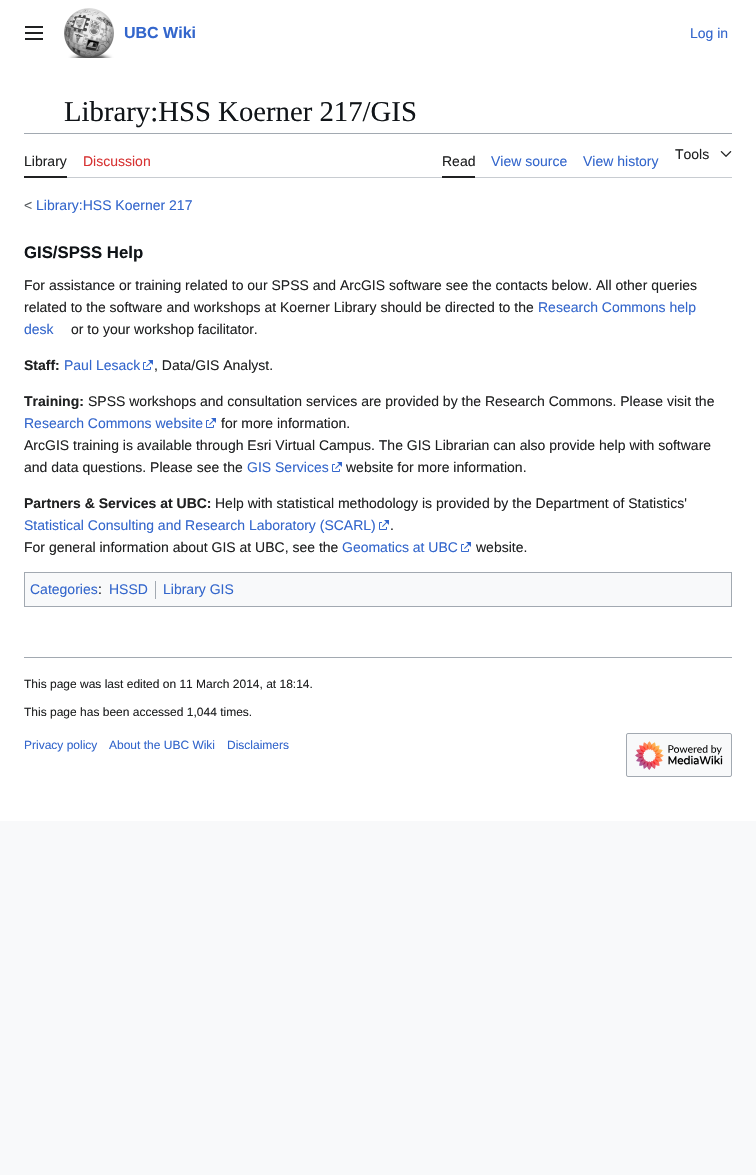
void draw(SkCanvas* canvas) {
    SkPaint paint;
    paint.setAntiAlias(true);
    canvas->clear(0xFFF8F9FA);
    paint.setColor(0xFFFFFFFF);
    canvas->drawRect(SkRect::MakeXYWH(0, 0, 756, 821), paint);
    canvas->drawImageRect(SkImages::DeferredFromEncodedData(SkData::MakeFromFileName("img1.png")), SkRect::MakeXYWH(25, 26, 18, 14), SkSamplingOptions());
    canvas->drawImageRect(SkImages::DeferredFromEncodedData(SkData::MakeFromFileName("img2.png")), SkRect::MakeXYWH(64, 8, 50, 50), SkSamplingOptions());
    SkFont font1(fontMgr->matchFamilyStyle("Liberation Sans", SkFontStyle::Bold()), 16);
    font1.setSubpixel(true);
    paint.setColor(0xFF3366CC);
    canvas->drawString("UBC Wiki", 124, 38, font1, paint);
    SkFont font2(fontMgr->matchFamilyStyle("Liberation Sans", SkFontStyle::Normal()), 14);
    font2.setSubpixel(true);
    canvas->drawString("Log in", 690, 38, font2, paint);
    SkFont font3(fontMgr->matchFamilyStyle("Liberation Serif", SkFontStyle::Normal()), 28.75f);
    font3.setSubpixel(true);
    paint.setColor(0xFF101418);
    canvas->drawString("Library:HSS Koerner 217/GIS", 64, 121, font3, paint);
    paint.setColor(0xFFA2A9B1);
    canvas->drawRect(SkRect::MakeXYWH(24, 133, 708, 1), paint);
    paint.setColor(0xFFC8CCD1);
    canvas->drawRect(SkRect::MakeXYWH(67, 177, 665, 1), paint);
    paint.setColor(0xFF202122);
    canvas->drawRect(SkRect::MakeXYWH(24, 176, 43, 2), paint);
    canvas->drawString("Library", 24, 166, font2, paint);
    paint.setColor(0xFFD73333);
    canvas->drawString("Discussion", 83, 166, font2, paint);
    paint.setColor(0xFF202122);
    canvas->drawRect(SkRect::MakeXYWH(442, 176, 33, 2), paint);
    canvas->drawString("Read", 442, 166, font2, paint);
    paint.setColor(0xFF3366CC);
    canvas->drawString("View source", 491, 166, font2, paint);
    canvas->drawString("View history", 583, 166, font2, paint);
    paint.setColor(0xFF202122);
    canvas->drawString("Tools", 675, 159, font2, paint);
    canvas->drawImageRect(SkImages::DeferredFromEncodedData(SkData::MakeFromFileName("img3.png")), SkRect::MakeXYWH(720, 151, 12, 6), SkSamplingOptions());
    paint.setColor(0xFF54595D);
    canvas->drawString("<", 24, 210, font2, paint);
    paint.setColor(0xFF3366CC);
    canvas->drawString("Library:HSS Koerner 217", 36, 210, font2, paint);
    SkFont font4(fontMgr->matchFamilyStyle("Liberation Sans", SkFontStyle::Bold()), 16.75f);
    font4.setSubpixel(true);
    paint.setColor(0xFF101418);
    canvas->drawString("GIS/SPSS Help", 24, 258, font4, paint);
    paint.setColor(0xFF202122);
    canvas->drawString("For assistance or training related to our SPSS and ArcGIS software see the contacts below. All other queries", 24, 290, font2, paint);
    canvas->drawString("related to the software and workshops at Koerner Library should be directed to the", 24, 312, font2, paint);
    paint.setColor(0xFF3366CC);
    canvas->drawString("Research Commons help", 538, 312, font2, paint);
    canvas->drawString("desk", 24, 334, font2, paint);
    paint.setColor(0xFF202122);
    canvas->drawString("or to your workshop facilitator.", 71, 334, font2, paint);
    SkFont font5(fontMgr->matchFamilyStyle("Liberation Sans", SkFontStyle::Bold()), 14);
    font5.setSubpixel(true);
    canvas->drawString("Staff:", 24, 370, font5, paint);
    paint.setColor(0xFF3366CC);
    canvas->drawString("Paul Lesack", 64, 370, font2, paint);
    canvas->drawImageRect(SkImages::DeferredFromEncodedData(SkData::MakeFromFileName("img4.png")), SkRect::MakeXYWH(143, 360, 10, 10), SkSamplingOptions());
    paint.setColor(0xFF202122);
    canvas->drawString(", Data/GIS Analyst.", 154, 370, font2, paint);
    canvas->drawString("Training:", 24, 406, font5, paint);
    canvas->drawString("SPSS workshops and consultation services are provided by the Research Commons. Please visit the", 88, 406, font2, paint);
    paint.setColor(0xFF3366CC);
    canvas->drawString("Research Commons website", 24, 428, font2, paint);
    canvas->drawImageRect(SkImages::DeferredFromEncodedData(SkData::MakeFromFileName("img4.png")), SkRect::MakeXYWH(206, 418, 10, 10), SkSamplingOptions());
    paint.setColor(0xFF202122);
    canvas->drawString("for more information.", 221, 428, font2, paint);
    canvas->drawString("ArcGIS training is available through Esri Virtual Campus. The GIS Librarian can also provide help with software", 24, 450, font2, paint);
    canvas->drawString("and data questions. Please see the", 24, 472, font2, paint);
    paint.setColor(0xFF3366CC);
    canvas->drawString("GIS Services", 247, 472, font2, paint);
    canvas->drawImageRect(SkImages::DeferredFromEncodedData(SkData::MakeFromFileName("img4.png")), SkRect::MakeXYWH(332, 462, 10, 10), SkSamplingOptions());
    paint.setColor(0xFF202122);
    canvas->drawString("website for more information.", 346, 472, font2, paint);
    canvas->drawString("Partners & Services at UBC:", 24, 508, font5, paint);
    canvas->drawString("Help with statistical methodology is provided by the Department of Statistics'", 215, 508, font2, paint);
    paint.setColor(0xFF3366CC);
    canvas->drawString("Statistical Consulting and Research Laboratory (SCARL)", 24, 530, font2, paint);
    canvas->drawImageRect(SkImages::DeferredFromEncodedData(SkData::MakeFromFileName("img4.png")), SkRect::MakeXYWH(379, 520, 10, 10), SkSamplingOptions());
    paint.setColor(0xFF202122);
    canvas->drawString(".", 390, 530, font2, paint);
    canvas->drawString("For general information about GIS at UBC, see the", 24, 552, font2, paint);
    paint.setColor(0xFF3366CC);
    canvas->drawString("Geomatics at UBC", 342, 552, font2, paint);
    canvas->drawImageRect(SkImages::DeferredFromEncodedData(SkData::MakeFromFileName("img4.png")), SkRect::MakeXYWH(461, 542, 10, 10), SkSamplingOptions());
    paint.setColor(0xFF202122);
    canvas->drawString("website.", 476, 552, font2, paint);
    paint.setColor(0xFFF8F9FA);
    canvas->drawRect(SkRect::MakeXYWH(24.5f, 572.5f, 707, 34), paint);
    paint.setStyle(SkPaint::kStroke_Style);
    paint.setStrokeWidth(1);
    paint.setColor(0xFFA2A9B1);
    canvas->drawRect(SkRect::MakeXYWH(24.5f, 572.5f, 707, 34), paint);
    paint.setStyle(SkPaint::kFill_Style);
    paint.setColor(0xFF3366CC);
    canvas->drawString("Categories", 30, 594, font2, paint);
    paint.setColor(0xFF202122);
    canvas->drawString(":", 98, 594, font2, paint);
    paint.setColor(0xFF3366CC);
    canvas->drawString("HSSD", 109, 594, font2, paint);
    paint.setColor(0xFFA2A9B1);
    canvas->drawRect(SkRect::MakeXYWH(155, 581, 1, 18), paint);
    paint.setColor(0xFF3366CC);
    canvas->drawString("Library GIS", 163, 594, font2, paint);
    paint.setColor(0xFFA2A9B1);
    canvas->drawRect(SkRect::MakeXYWH(24, 657, 708, 1), paint);
    SkFont font6(fontMgr->matchFamilyStyle("Liberation Sans", SkFontStyle::Normal()), 12);
    font6.setSubpixel(true);
    paint.setColor(0xFF202122);
    canvas->drawString("This page was last edited on 11 March 2014, at 18:14.", 24, 688, font6, paint);
    canvas->drawString("This page has been accessed 1,044 times.", 24, 716, font6, paint);
    paint.setColor(0xFF3366CC);
    canvas->drawString("Privacy policy", 24, 749, font6, paint);
    canvas->drawString("About the UBC Wiki", 109, 749, font6, paint);
    canvas->drawString("Disclaimers", 227, 749, font6, paint);
    paint.setColor(0xFFF8F9FA);
    canvas->drawRoundRect(SkRect::MakeXYWH(626.5f, 733.5f, 105, 43), 1.5f, 1.5f, paint);
    paint.setStyle(SkPaint::kStroke_Style);
    paint.setColor(0xFFA2A9B1);
    canvas->drawRoundRect(SkRect::MakeXYWH(626.5f, 733.5f, 105, 43), 1.5f, 1.5f, paint);
    canvas->drawImageRect(SkImages::DeferredFromEncodedData(SkData::MakeFromFileName("img5.png")), SkRect::MakeXYWH(635, 741, 88, 29), SkSamplingOptions());
}
